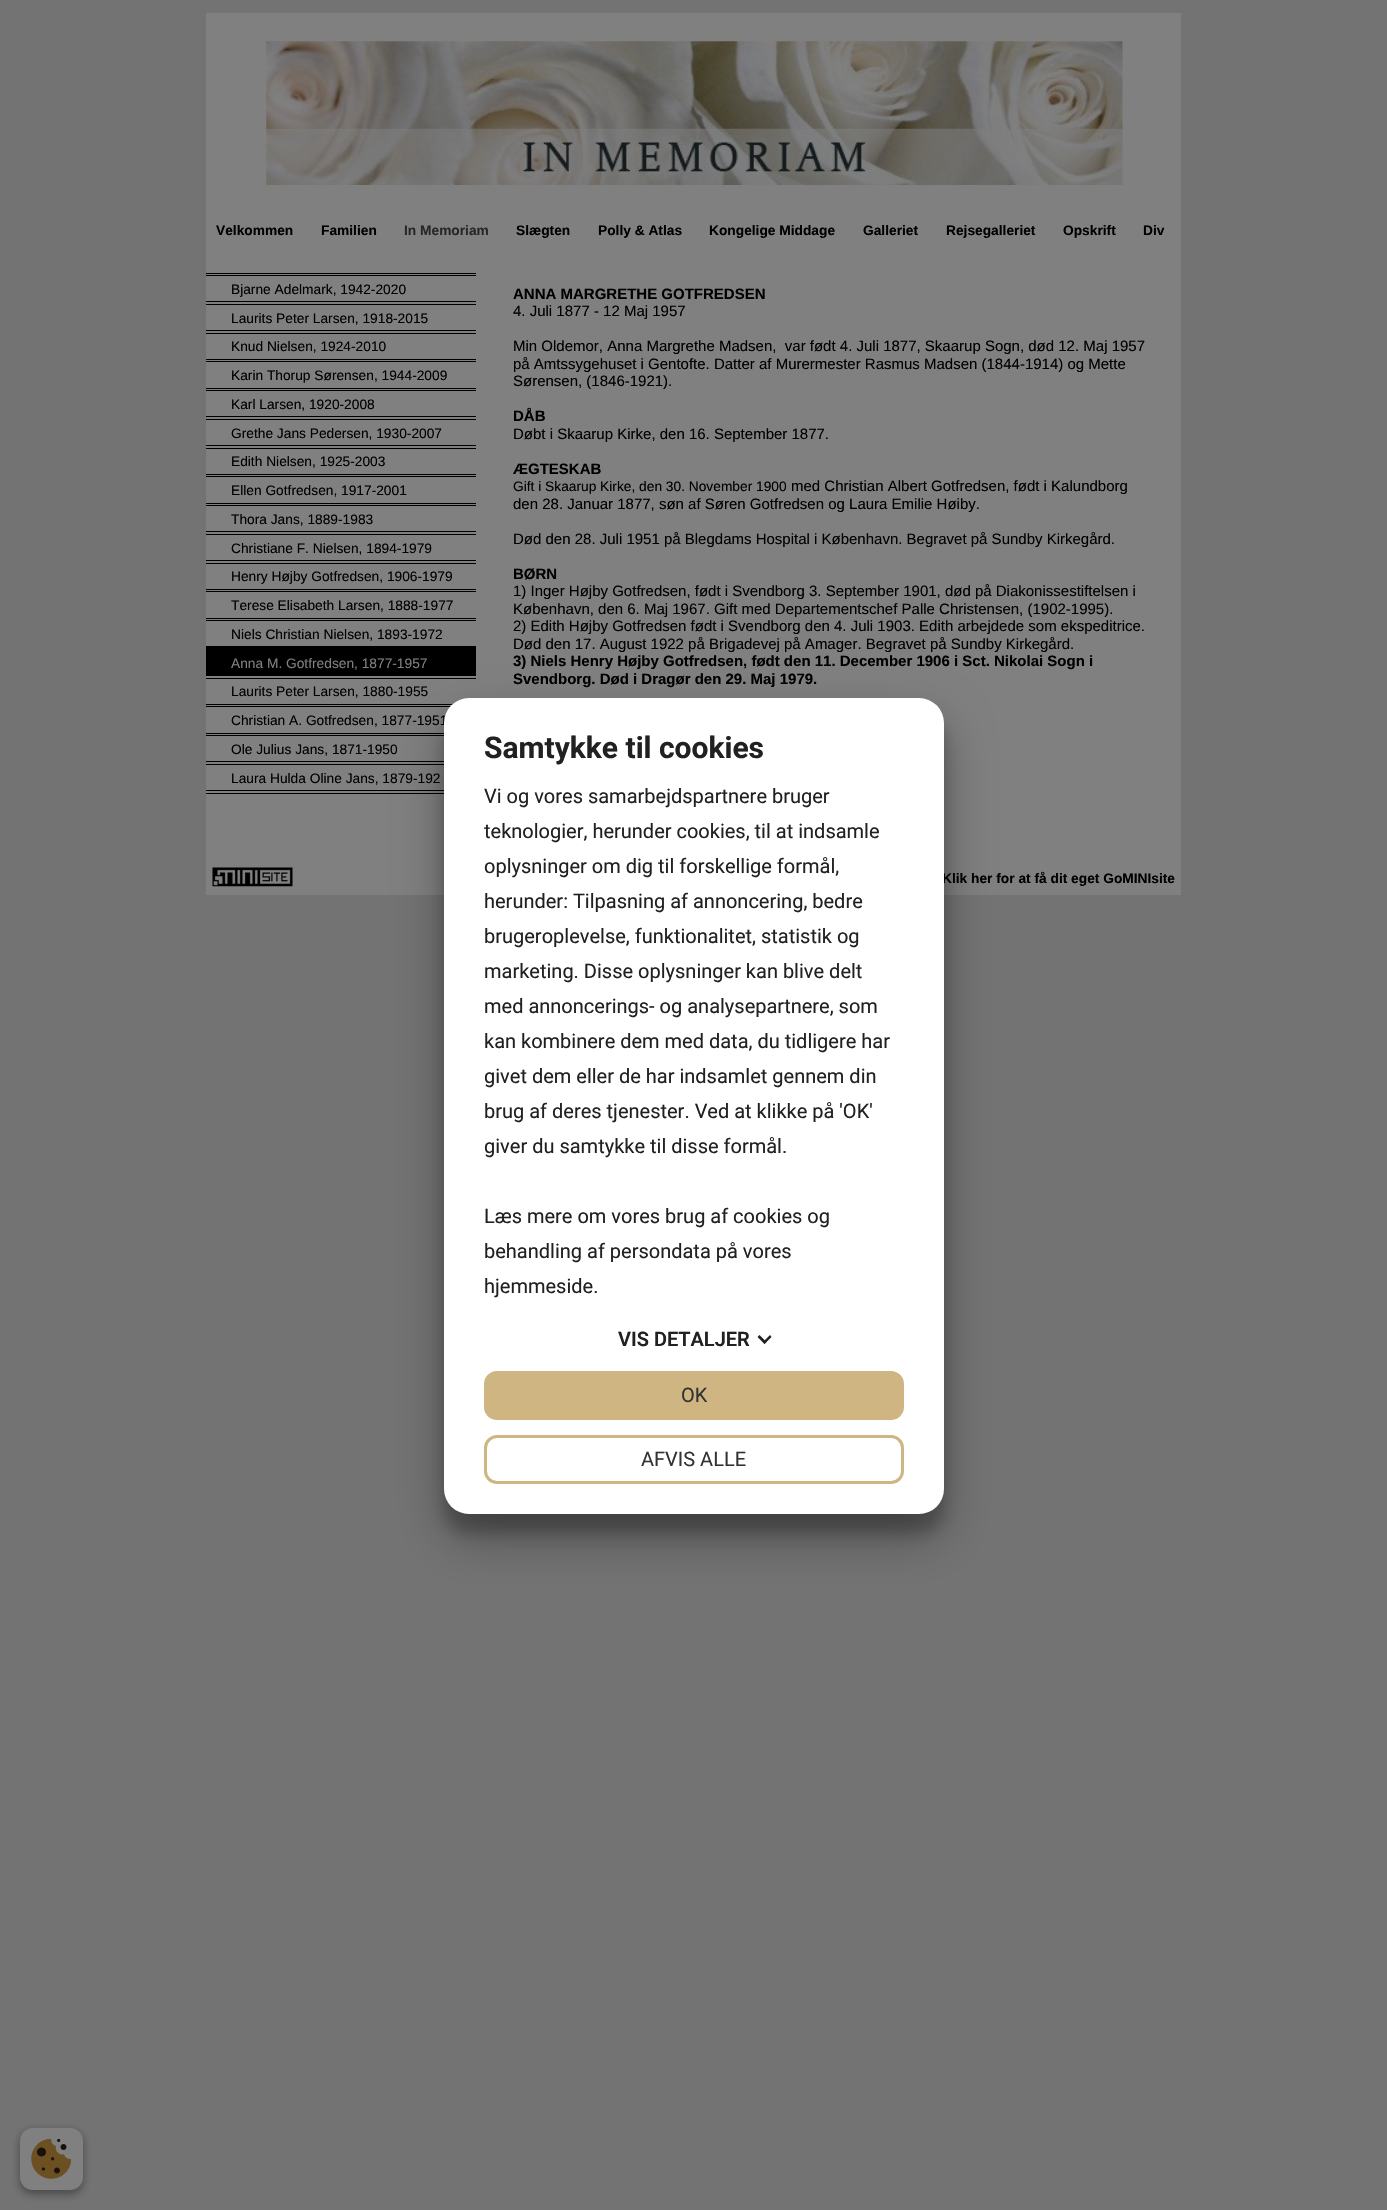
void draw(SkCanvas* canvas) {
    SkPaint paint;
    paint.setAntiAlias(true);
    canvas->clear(0xFF737373);
    paint.setColor(0xFF808080);
    canvas->drawRect(SkRect::MakeXYWH(206, 13, 975, 882), paint);
    canvas->drawImageRect(SkImages::DeferredFromEncodedData(SkData::MakeFromFileName("img1.png")), SkRect::MakeXYWH(266, 41, 857, 144), SkSamplingOptions());
    SkFont font1(fontMgr->matchFamilyStyle("Liberation Sans", SkFontStyle::Bold()), 13.75f);
    font1.setSubpixel(true);
    paint.setColor(0xFF000000);
    canvas->drawString("Velkommen", 216, 235, font1, paint);
    canvas->drawString("Familien", 321, 235, font1, paint);
    paint.setColor(0xFF272727);
    canvas->drawString("In Memoriam", 404, 235, font1, paint);
    paint.setColor(0xFF000000);
    canvas->drawString("Slægten", 516, 235, font1, paint);
    canvas->drawString("Polly & Atlas", 598, 235, font1, paint);
    canvas->drawString("Kongelige Middage", 709, 235, font1, paint);
    canvas->drawString("Galleriet", 863, 235, font1, paint);
    canvas->drawString("Rejsegalleriet", 946, 235, font1, paint);
    canvas->drawString("Opskrift", 1063, 235, font1, paint);
    paint.setStyle(SkPaint::kStroke_Style);
    paint.setStrokeWidth(7.5f);
    paint.setStrokeCap(SkPaint::kRound_Cap);
    paint.setColor(0xFF808080);
    paint.setPathEffect(SkDashPathEffect::Make({{0, 15}}, 0));
    canvas->drawPath(SkPathBuilder().moveTo(1177.5f, 212.5f).lineTo(1177.5f, 247.5f).detach(), paint);
    paint.setPathEffect(nullptr);
    paint.setStyle(SkPaint::kFill_Style);
    paint.setColor(0xFF000000);
    canvas->drawString("Div", 1143, 235, font1, paint);
    canvas->drawRect(SkRect::MakeXYWH(206, 790, 238, 1), paint);
    canvas->drawRect(SkRect::MakeXYWH(206, 793, 238, 1), paint);
    canvas->drawRect(SkRect::MakeXYWH(206, 273, 270, 1), paint);
    canvas->drawRect(SkRect::MakeXYWH(206, 275, 270, 1), paint);
    SkFont font2(fontMgr->matchFamilyStyle("Liberation Sans", SkFontStyle::Normal()), 13.75f);
    font2.setSubpixel(true);
    canvas->drawString("Bjarne Adelmark, 1942-2020", 231, 294, font2, paint);
    canvas->drawRect(SkRect::MakeXYWH(206, 301, 270, 1), paint);
    canvas->drawRect(SkRect::MakeXYWH(206, 304, 270, 1), paint);
    canvas->drawString("Laurits Peter Larsen, 1918-2015", 231, 323, font2, paint);
    canvas->drawRect(SkRect::MakeXYWH(206, 330, 270, 1), paint);
    canvas->drawRect(SkRect::MakeXYWH(206, 333, 270, 1), paint);
    canvas->drawString("Knud Nielsen, 1924-2010", 231, 351, font2, paint);
    canvas->drawRect(SkRect::MakeXYWH(206, 359, 270, 1), paint);
    canvas->drawRect(SkRect::MakeXYWH(206, 361, 270, 1), paint);
    canvas->drawString("Karin Thorup Sørensen, 1944-2009", 231, 380, font2, paint);
    canvas->drawRect(SkRect::MakeXYWH(206, 388, 270, 1), paint);
    canvas->drawRect(SkRect::MakeXYWH(206, 390, 270, 1), paint);
    canvas->drawString("Karl Larsen, 1920-2008", 231, 409, font2, paint);
    canvas->drawRect(SkRect::MakeXYWH(206, 416, 270, 1), paint);
    canvas->drawRect(SkRect::MakeXYWH(206, 419, 270, 1), paint);
    canvas->drawString("Grethe Jans Pedersen, 1930-2007", 231, 438, font2, paint);
    canvas->drawRect(SkRect::MakeXYWH(206, 445, 270, 1), paint);
    canvas->drawRect(SkRect::MakeXYWH(206, 448, 270, 1), paint);
    canvas->drawString("Edith Nielsen, 1925-2003", 231, 466, font2, paint);
    canvas->drawRect(SkRect::MakeXYWH(206, 474, 270, 1), paint);
    canvas->drawRect(SkRect::MakeXYWH(206, 476, 270, 1), paint);
    canvas->drawString("Ellen Gotfredsen, 1917-2001", 231, 495, font2, paint);
    canvas->drawRect(SkRect::MakeXYWH(206, 503, 270, 1), paint);
    canvas->drawRect(SkRect::MakeXYWH(206, 505, 270, 1), paint);
    canvas->drawString("Thora Jans, 1889-1983", 231, 524, font2, paint);
    canvas->drawRect(SkRect::MakeXYWH(206, 531, 270, 1), paint);
    canvas->drawRect(SkRect::MakeXYWH(206, 534, 270, 1), paint);
    canvas->drawString("Christiane F. Nielsen, 1894-1979", 231, 553, font2, paint);
    canvas->drawRect(SkRect::MakeXYWH(206, 560, 270, 1), paint);
    canvas->drawRect(SkRect::MakeXYWH(206, 563, 270, 1), paint);
    canvas->drawString("Henry Højby Gotfredsen, 1906-1979", 231, 581, font2, paint);
    canvas->drawRect(SkRect::MakeXYWH(206, 589, 270, 1), paint);
    canvas->drawRect(SkRect::MakeXYWH(206, 591, 270, 1), paint);
    canvas->drawString("Terese Elisabeth Larsen, 1888-1977", 231, 610, font2, paint);
    canvas->drawRect(SkRect::MakeXYWH(206, 618, 270, 1), paint);
    canvas->drawRect(SkRect::MakeXYWH(206, 620, 270, 1), paint);
    canvas->drawString("Niels Christian Nielsen, 1893-1972", 231, 639, font2, paint);
    canvas->drawRect(SkRect::MakeXYWH(206, 646, 270, 30), paint);
    paint.setColor(0xFF808080);
    canvas->drawString("Anna M. Gotfredsen, 1877-1957", 231, 668, font2, paint);
    paint.setColor(0xFF000000);
    canvas->drawRect(SkRect::MakeXYWH(206, 678, 270, 1), paint);
    canvas->drawString("Laurits Peter Larsen, 1880-1955", 231, 696, font2, paint);
    canvas->drawRect(SkRect::MakeXYWH(206, 704, 247, 1), paint);
    canvas->drawRect(SkRect::MakeXYWH(206, 706, 245, 1), paint);
    canvas->drawString("Christian A. Gotfredsen, 1877-1951", 231, 725, font2, paint);
    canvas->drawRect(SkRect::MakeXYWH(206, 733, 238, 1), paint);
    canvas->drawRect(SkRect::MakeXYWH(206, 735, 238, 1), paint);
    canvas->drawString("Ole Julius Jans, 1871-1950", 231, 754, font2, paint);
    canvas->drawRect(SkRect::MakeXYWH(206, 761, 238, 1), paint);
    canvas->drawRect(SkRect::MakeXYWH(206, 764, 238, 1), paint);
    canvas->drawString("Laura Hulda Oline Jans, 1879-192", 231, 783, font2, paint);
    SkFont font3(fontMgr->matchFamilyStyle("Liberation Sans", SkFontStyle::Bold()), 15);
    font3.setSubpixel(true);
    canvas->drawString("ANNA MARGRETHE GOTFREDSEN", 513, 299, font3, paint);
    SkFont font4(fontMgr->matchFamilyStyle("Liberation Sans", SkFontStyle::Normal()), 15);
    font4.setSubpixel(true);
    canvas->drawString("4. Juli 1877 - 12 Maj 1957", 513, 316, font4, paint);
    canvas->drawString("Min Oldemor, Anna Margrethe Madsen,  var født 4. Juli 1877, Skaarup Sogn, død 12. Maj 1957", 513, 351, font4, paint);
    canvas->drawString("på Amtssygehuset i Gentofte. Datter af Murermester Rasmus Madsen (1844-1914) og Mette", 513, 369, font4, paint);
    canvas->drawString("Sørensen, (1846-1921).", 513, 386, font4, paint);
    canvas->drawString("DÅB", 513, 421, font3, paint);
    canvas->drawString("Døbt i Skaarup Kirke, den 16. September 1877.", 513, 439, font4, paint);
    canvas->drawString("ÆGTESKAB", 513, 474, font3, paint);
    canvas->drawString("Gift i Skaarup Kirke, den 30. November 1900", 513, 491, font2, paint);
    canvas->drawString("med Christian Albert Gotfredsen, født i Kalundborg", 791, 491, font4, paint);
    canvas->drawString("den 28. Januar 1877, søn af Søren Gotfredsen og Laura Emilie Høiby.", 513, 509, font4, paint);
    canvas->drawString("Død den 28. Juli 1951 på Blegdams Hospital i København. Begravet på Sundby Kirkegård.", 513, 544, font4, paint);
    canvas->drawString("BØRN", 513, 579, font3, paint);
    canvas->drawString("1) Inger Højby Gotfredsen, født i Svendborg 3. September 1901, død på Diakonissestiftelsen i", 513, 596, font4, paint);
    canvas->drawString("København, den 6. Maj 1967. Gift med Departementschef Palle Christensen, (1902-1995).", 513, 614, font4, paint);
    canvas->drawString("2) Edith Højby Gotfredsen født i Svendborg den 4. Juli 1903. Edith arbejdede som ekspeditrice.", 513, 631, font4, paint);
    canvas->drawString("Død den 17. August 1922 på Brigadevej på Amager. Begravet på Sundby Kirkegård.", 513, 649, font4, paint);
    canvas->drawString("3) Niels Henry Højby Gotfredsen, født den 11. December 1906 i Sct. Nikolai Sogn i", 513, 666, font3, paint);
    canvas->drawString("Svendborg. Død i Dragør den 29. Maj 1979.", 513, 684, font3, paint);
    canvas->drawImageRect(SkImages::DeferredFromEncodedData(SkData::MakeFromFileName("img2.png")), SkRect::MakeXYWH(212, 867, 81, 20), SkSamplingOptions());
    canvas->drawString("Klik her for at få dit eget GoMINIsite", 942, 883, font1, paint);
    paint.setColor(0x38000000);
    paint.setMaskFilter(SkMaskFilter::MakeBlur(kNormal_SkBlurStyle, 7.5f));
    canvas->drawRoundRect(SkRect::MakeXYWH(444, 716, 500, 817), 25, 25, paint);
    paint.setMaskFilter(nullptr);
    paint.setColor(0x4D000000);
    paint.setMaskFilter(SkMaskFilter::MakeBlur(kNormal_SkBlurStyle, 24));
    canvas->drawRoundRect(SkRect::MakeXYWH(444, 721, 500, 817), 25, 25, paint);
    paint.setMaskFilter(nullptr);
    paint.setColor(0xFFFFFFFF);
    canvas->drawRoundRect(SkRect::MakeXYWH(444, 698, 500, 816), 25, 25, paint);
    SkFont font5(fontMgr->matchFamilyStyle("Roboto", SkFontStyle::Bold()), 30);
    font5.setSubpixel(true);
    paint.setColor(0xFF212121);
    canvas->drawString("Samtykke til cookies", 484, 758, font5, paint);
    SkFont font6(fontMgr->matchFamilyStyle("Roboto", SkFontStyle::Normal()), 20);
    font6.setSubpixel(true);
    canvas->drawString("Vi og vores samarbejdspartnere bruger", 484, 803, font6, paint);
    canvas->drawString("teknologier, herunder cookies, til at indsamle", 484, 838, font6, paint);
    canvas->drawString("oplysninger om dig til forskellige formål,", 484, 873, font6, paint);
    canvas->drawString("herunder: Tilpasning af annoncering, bedre", 484, 908, font6, paint);
    canvas->drawString("brugeroplevelse, funktionalitet, statistik og", 484, 943, font6, paint);
    canvas->drawString("marketing. Disse oplysninger kan blive delt", 484, 978, font6, paint);
    canvas->drawString("med annoncerings- og analysepartnere, som", 484, 1013, font6, paint);
    canvas->drawString("kan kombinere dem med data, du tidligere har", 484, 1048, font6, paint);
    canvas->drawString("givet dem eller de har indsamlet gennem din", 484, 1083, font6, paint);
    canvas->drawString("brug af deres tjenester. Ved at klikke på 'OK'", 484, 1118, font6, paint);
    canvas->drawString("giver du samtykke til disse formål.", 484, 1153, font6, paint);
    canvas->drawString("Læs mere om vores brug af cookies og", 484, 1223, font6, paint);
    canvas->drawString("behandling af persondata på vores", 484, 1258, font6, paint);
    canvas->drawString("hjemmeside.", 484, 1293, font6, paint);
    SkFont font7(fontMgr->matchFamilyStyle("Roboto", SkFontStyle(600, SkFontStyle::kNormal_Width, SkFontStyle::kUpright_Slant)), 20);
    font7.setSubpixel(true);
    canvas->drawString("VIS DETALJER", 618, 1346, font7, paint);
    canvas->drawPath(SkPathBuilder().moveTo(770, 1335).lineTo(771.5f, 1337).lineTo(764.5f, 1344).lineTo(763, 1342).close().detach(), paint);
    canvas->drawPath(SkPathBuilder().moveTo(759.5f, 1335).lineTo(766.5f, 1342).lineTo(764.5f, 1344).lineTo(757.5f, 1337).close().detach(), paint);
    paint.setColor(0xFFCEB582);
    canvas->drawRoundRect(SkRect::MakeXYWH(485.5f, 1372.5f, 417, 46), 11.5f, 11.5f, paint);
    paint.setStyle(SkPaint::kStroke_Style);
    paint.setStrokeWidth(3);
    paint.setStrokeCap(SkPaint::kButt_Cap);
    canvas->drawRoundRect(SkRect::MakeXYWH(485.5f, 1372.5f, 417, 46), 11.5f, 11.5f, paint);
    paint.setStyle(SkPaint::kFill_Style);
    paint.setColor(0xFF333333);
    canvas->drawString("OK", 681, 1402, font6, paint);
    paint.setStyle(SkPaint::kStroke_Style);
    paint.setColor(0xFFCEB582);
    canvas->drawRoundRect(SkRect::MakeXYWH(485.5f, 1436.5f, 417, 46), 11.5f, 11.5f, paint);
    paint.setStyle(SkPaint::kFill_Style);
    paint.setColor(0xFF333333);
    canvas->drawString("AFVIS ALLE", 641, 1466, font6, paint);
    paint.setColor(0x3B000000);
    paint.setMaskFilter(SkMaskFilter::MakeBlur(kNormal_SkBlurStyle, 4));
    canvas->drawRoundRect(SkRect::MakeXYWH(20, 2131, 63, 63), 13, 13, paint);
    paint.setMaskFilter(nullptr);
    paint.setColor(0x29000000);
    paint.setMaskFilter(SkMaskFilter::MakeBlur(kNormal_SkBlurStyle, 4));
    canvas->drawRoundRect(SkRect::MakeXYWH(20, 2131, 63, 63), 13, 13, paint);
    paint.setMaskFilter(nullptr);
    paint.setColor(0xFF808080);
    canvas->drawRoundRect(SkRect::MakeXYWH(20, 2128, 63, 62), 13, 13, paint);
    canvas->drawImageRect(SkImages::DeferredFromEncodedData(SkData::MakeFromFileName("img3.png")), SkRect::MakeXYWH(31, 2139, 40, 40), SkSamplingOptions());
}
